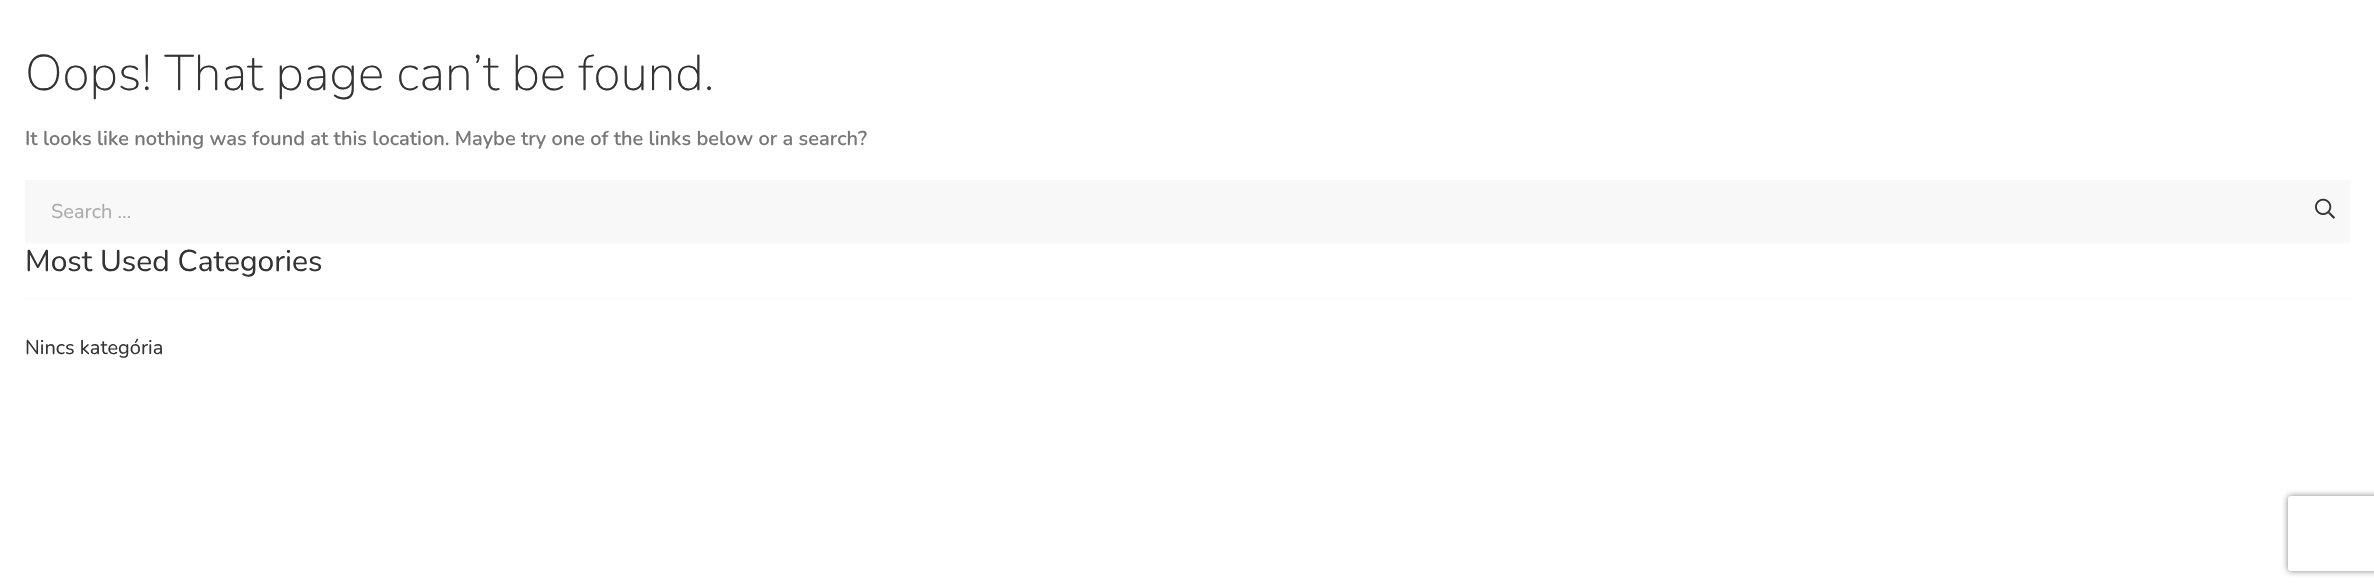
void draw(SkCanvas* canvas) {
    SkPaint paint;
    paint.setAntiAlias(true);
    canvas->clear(0xFFFFFFFF);
    SkFont font1(fontMgr->matchFamilyStyle("Nunito", SkFontStyle(200, SkFontStyle::kNormal_Width, SkFontStyle::kUpright_Slant)), 50);
    font1.setSubpixel(true);
    paint.setColor(0xFF333333);
    canvas->drawString("Oops! That page can’t be found.", 25, 90, font1, paint);
    SkFont font2(fontMgr->matchFamilyStyle("Nunito", SkFontStyle(600, SkFontStyle::kNormal_Width, SkFontStyle::kUpright_Slant)), 20);
    font2.setSubpixel(true);
    paint.setColor(0xFF777777);
    canvas->drawString("It looks like nothing was found at this location. Maybe try one of the links below or a search?", 25, 145, font2, paint);
    paint.setColor(0xFFF8F8F8);
    canvas->drawRect(SkRect::MakeXYWH(25, 180, 2325, 63), paint);
    SkFont font3(fontMgr->matchFamilyStyle("Nunito", SkFontStyle::Normal()), 20);
    font3.setSubpixel(true);
    paint.setColor(0xFFABABAB);
    canvas->drawString("Search …", 51, 218, font3, paint);
    canvas->drawImageRect(SkImages::DeferredFromEncodedData(SkData::MakeFromFileName("img1.png")), SkRect::MakeXYWH(2315, 198, 20, 21), SkSamplingOptions());
    paint.setColor(0xFFF8F8F8);
    canvas->drawRect(SkRect::MakeXYWH(25, 299, 2325, 1), paint);
    SkFont font4(fontMgr->matchFamilyStyle("Nunito", SkFontStyle::Normal()), 30);
    font4.setSubpixel(true);
    paint.setColor(0xFF333333);
    canvas->drawString("Most Used Categories", 25, 271, font4, paint);
    canvas->drawString("Nincs kategória", 25, 354, font3, paint);
    canvas->save();
    canvas->clipPath(SkPathBuilder(SkPathFillType::kEvenOdd).moveTo(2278, 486).lineTo(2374, 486).lineTo(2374, 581).lineTo(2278, 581).close().moveTo(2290.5f, 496).lineTo(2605.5f, 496).cubicTo(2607, 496, 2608, 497, 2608, 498.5f).lineTo(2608, 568.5f).cubicTo(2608, 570, 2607, 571, 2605.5f, 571).lineTo(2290.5f, 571).cubicTo(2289, 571, 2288, 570, 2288, 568.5f).lineTo(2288, 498.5f).cubicTo(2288, 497, 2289, 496, 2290.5f, 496).close().detach(), true);
    paint.setColor(0xFF808080);
    paint.setMaskFilter(SkMaskFilter::MakeBlur(kNormal_SkBlurStyle, 3));
    canvas->drawRoundRect(SkRect::MakeXYWH(2288, 496, 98, 75), 2.5f, 2.5f, paint);
    paint.setMaskFilter(nullptr);
    canvas->restore();
}
